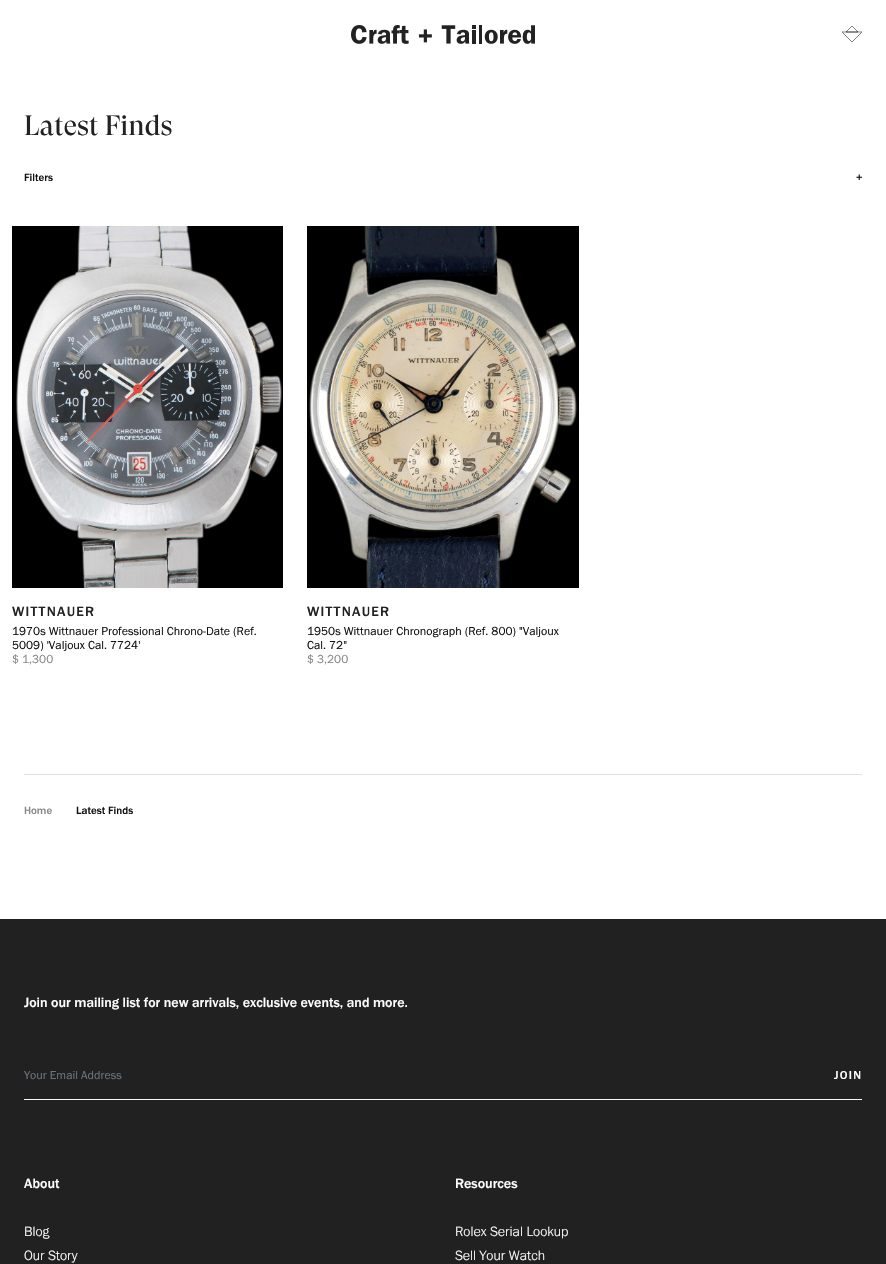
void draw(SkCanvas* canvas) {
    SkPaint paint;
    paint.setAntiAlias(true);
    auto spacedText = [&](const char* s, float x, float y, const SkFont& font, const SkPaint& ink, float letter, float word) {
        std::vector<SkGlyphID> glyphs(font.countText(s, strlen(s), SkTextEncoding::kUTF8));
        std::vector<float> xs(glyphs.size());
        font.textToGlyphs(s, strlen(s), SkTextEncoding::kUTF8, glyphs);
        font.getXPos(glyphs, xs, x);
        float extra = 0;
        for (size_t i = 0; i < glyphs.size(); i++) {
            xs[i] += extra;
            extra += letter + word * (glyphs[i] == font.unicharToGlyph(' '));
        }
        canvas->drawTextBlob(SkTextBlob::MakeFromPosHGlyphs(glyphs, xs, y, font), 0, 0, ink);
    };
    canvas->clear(0xFFFFFFFF);
    canvas->drawImageRect(SkImages::DeferredFromEncodedData(SkData::MakeFromFileName("img1.png")), SkRect::MakeXYWH(351, 25, 184, 19), SkSamplingOptions());
    canvas->save();
    canvas->clipRect(SkRect::MakeXYWH(842, 24, 20, 20));
    paint.setStyle(SkPaint::kStroke_Style);
    paint.setStrokeWidth(1);
    paint.setColor(0xFF808080);
    canvas->drawPath(SkPathBuilder().moveTo(842, 32).lineTo(862, 32).lineTo(852, 42).close().detach(), paint);
    canvas->restore();
    paint.setColor(0x80000000);
    canvas->drawPath(SkPathBuilder().moveTo(846, 32).lineTo(852, 26).lineTo(858, 32).close().detach(), paint);
    SkFont font1(fontMgr->matchFamilyStyle("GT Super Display", SkFontStyle::Normal()), 28);
    font1.setSubpixel(true);
    paint.setStyle(SkPaint::kFill_Style);
    paint.setColor(0xFF222222);
    canvas->drawString("Latest Finds", 24, 135, font1, paint);
    SkFont font2(fontMgr->matchFamilyStyle("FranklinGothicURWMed", SkFontStyle::Normal()), 11);
    font2.setSubpixel(true);
    paint.setColor(0xFF111111);
    canvas->drawString("Filters", 24, 181, font2, paint);
    canvas->drawString("+", 856, 181, font2, paint);
    canvas->drawImageRect(SkImages::DeferredFromEncodedData(SkData::MakeFromFileName("img2.png")), SkRect::MakeXYWH(12, 226, 271, 362), SkSamplingOptions());
    SkFont font3(fontMgr->matchFamilyStyle("FranklinGothicURWMed", SkFontStyle::Normal()), 14);
    font3.setSubpixel(true);
    paint.setColor(0xFF222222);
    spacedText("WITTNAUER", 12, 616, font3, paint, 1.25f, 0);
    SkFont font4(fontMgr->matchFamilyStyle("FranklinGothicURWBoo", SkFontStyle::Normal()), 12);
    font4.setSubpixel(true);
    paint.setColor(0xFF111111);
    canvas->drawString("1970s Wittnauer Professional Chrono-Date (Ref.", 12, 635, font4, paint);
    canvas->drawString("5009) 'Valjoux Cal. 7724'", 12, 649, font4, paint);
    paint.setColor(0xFF888888);
    canvas->drawString("$ 1,300", 12, 663, font4, paint);
    canvas->drawImageRect(SkImages::DeferredFromEncodedData(SkData::MakeFromFileName("img3.png")), SkRect::MakeXYWH(307, 226, 272, 362), SkSamplingOptions());
    paint.setColor(0xFF222222);
    spacedText("WITTNAUER", 307, 616, font3, paint, 1.25f, 0);
    paint.setColor(0xFF111111);
    canvas->drawString("1950s Wittnauer Chronograph (Ref. 800) \"Valjoux", 307, 635, font4, paint);
    canvas->drawString("Cal. 72\"", 307, 649, font4, paint);
    paint.setColor(0xFF888888);
    canvas->drawString("$ 3,200", 307, 663, font4, paint);
    paint.setColor(0xFFDEE2E6);
    canvas->drawRect(SkRect::MakeXYWH(24, 774, 838, 1), paint);
    paint.setColor(0xFF888888);
    canvas->drawString("Home", 24, 814, font2, paint);
    paint.setColor(0xFF111111);
    canvas->drawString("Latest Finds", 76, 814, font2, paint);
    paint.setColor(0xFF212121);
    canvas->drawRect(SkRect::MakeXYWH(0, 919, 886, 345), paint);
    paint.setColor(0xFFFFFFFF);
    canvas->drawString("Join our mailing list for new arrivals, exclusive events, and more.", 24, 1007, font3, paint);
    paint.setColor(0xFFF7F7F7);
    canvas->drawRect(SkRect::MakeXYWH(24, 1099, 838, 1), paint);
    paint.setColor(0xFF6C757D);
    canvas->drawString("Your Email Address", 24, 1079, font4, paint);
    SkFont font5(fontMgr->matchFamilyStyle("FranklinGothicURWMed", SkFontStyle::Normal()), 12);
    font5.setSubpixel(true);
    paint.setColor(0xFFFFFFFF);
    spacedText("JOIN", 834, 1079, font5, paint, 1.25f, 0);
    canvas->drawString("About", 24, 1188, font3, paint);
    SkFont font6(fontMgr->matchFamilyStyle("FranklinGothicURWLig", SkFontStyle::Normal()), 14);
    font6.setSubpixel(true);
    canvas->drawString("Blog", 24, 1236, font6, paint);
    canvas->drawString("Our Story", 24, 1260, font6, paint);
    canvas->drawString("Resources", 455, 1188, font3, paint);
    canvas->drawString("Rolex Serial Lookup", 455, 1236, font6, paint);
    canvas->drawString("Sell Your Watch", 455, 1260, font6, paint);
}
